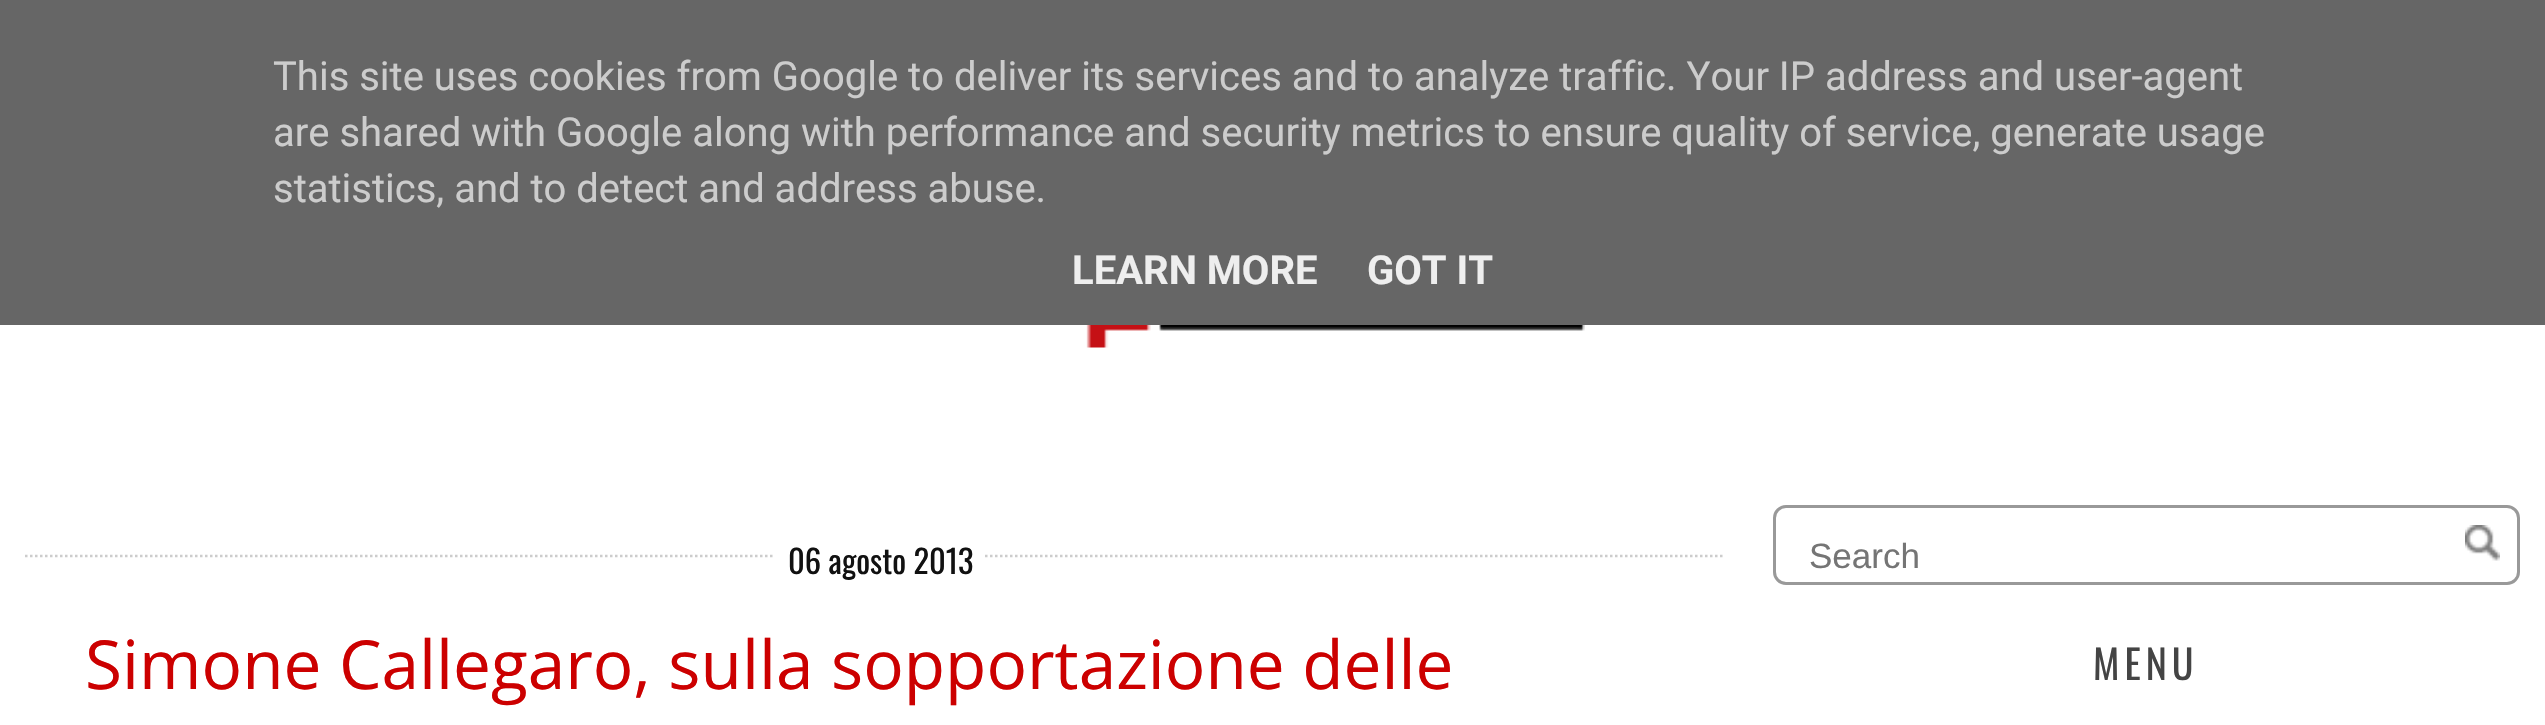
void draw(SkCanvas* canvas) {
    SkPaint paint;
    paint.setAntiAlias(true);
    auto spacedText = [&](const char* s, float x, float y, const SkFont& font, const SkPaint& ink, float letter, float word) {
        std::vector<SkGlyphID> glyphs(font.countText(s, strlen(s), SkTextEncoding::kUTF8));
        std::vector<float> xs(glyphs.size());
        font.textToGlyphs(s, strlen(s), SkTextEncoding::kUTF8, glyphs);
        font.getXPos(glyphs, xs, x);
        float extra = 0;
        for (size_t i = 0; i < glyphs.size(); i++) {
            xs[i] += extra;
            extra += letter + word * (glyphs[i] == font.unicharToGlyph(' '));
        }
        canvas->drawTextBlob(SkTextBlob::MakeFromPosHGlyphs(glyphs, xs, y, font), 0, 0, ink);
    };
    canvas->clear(0xFFFFFFFF);
    paint.setColor(0xFF666666);
    canvas->drawRect(SkRect::MakeXYWH(0, 0, 2545, 325), paint);
    SkFont font1(fontMgr->matchFamilyStyle("Roboto", SkFontStyle::Normal()), 40);
    font1.setSubpixel(true);
    paint.setColor(0xFFCCCCCC);
    canvas->drawString("This site uses cookies from Google to deliver its services and to analyze traffic. Your IP address and user-agent", 273, 90, font1, paint);
    canvas->drawString("are shared with Google along with performance and security metrics to ensure quality of service, generate usage", 273, 146, font1, paint);
    canvas->drawString("statistics, and to detect and address abuse.", 273, 202, font1, paint);
    SkFont font2(fontMgr->matchFamilyStyle("Roboto", SkFontStyle::Bold()), 40);
    font2.setSubpixel(true);
    paint.setColor(0xFFEEEEEE);
    canvas->drawString("LEARN MORE", 1072, 284, font2, paint);
    canvas->drawString("GOT IT", 1367, 284, font2, paint);
    canvas->drawImageRect(SkImages::DeferredFromEncodedData(SkData::MakeFromFileName("img1.png")), SkRect::MakeXYWH(1086, 325, 499, 23), SkSamplingOptions());
    paint.setStyle(SkPaint::kStroke_Style);
    paint.setStrokeWidth(2.5f);
    paint.setColor(0xFFCCCCCC);
    paint.setPathEffect(SkDashPathEffect::Make({{2.5f, 2.5f}}, 0));
    canvas->drawPath(SkPathBuilder().moveTo(25, 556).lineTo(1722.5f, 556).detach(), paint);
    paint.setPathEffect(nullptr);
    paint.setStyle(SkPaint::kFill_Style);
    paint.setColor(0xFFFFFFFF);
    canvas->drawRect(SkRect::MakeXYWH(775, 554, 208, 4), paint);
    SkFont font3(fontMgr->matchFamilyStyle("Oswald", SkFontStyle::Normal()), 32.5f);
    font3.setSubpixel(true);
    paint.setColor(0xFF111111);
    canvas->drawString("06 agosto 2013", 788, 574, font3, paint);
    SkFont font4(fontMgr->matchFamilyStyle("Open Sans", SkFontStyle::Normal()), 67.5f);
    font4.setSubpixel(true);
    paint.setColor(0xFFCC0000);
    canvas->drawString("Simone Callegaro, sulla sopportazione delle", 85, 689, font4, paint);
    paint.setStyle(SkPaint::kStroke_Style);
    paint.setStrokeWidth(3);
    paint.setColor(0xFF999999);
    canvas->drawRoundRect(SkRect::MakeXYWH(1774.5f, 506.5f, 744, 77), 11.5f, 11.5f, paint);
    SkFont font5(fontMgr->matchFamilyStyle("Liberation Sans", SkFontStyle::Normal()), 35);
    font5.setSubpixel(true);
    paint.setStyle(SkPaint::kFill_Style);
    paint.setColor(0xFF757575);
    canvas->drawString("Search", 1809, 568, font5, paint);
    canvas->drawImageRect(SkImages::DeferredFromEncodedData(SkData::MakeFromFileName("img2.png")), SkRect::MakeXYWH(2465, 525, 35, 36), SkSamplingOptions());
    SkFont font6(fontMgr->matchFamilyStyle("Oswald", SkFontStyle::Normal()), 40);
    font6.setSubpixel(true);
    paint.setColor(0xFF444444);
    spacedText("MENU", 2093, 680, font6, paint, 5, 0);
}
